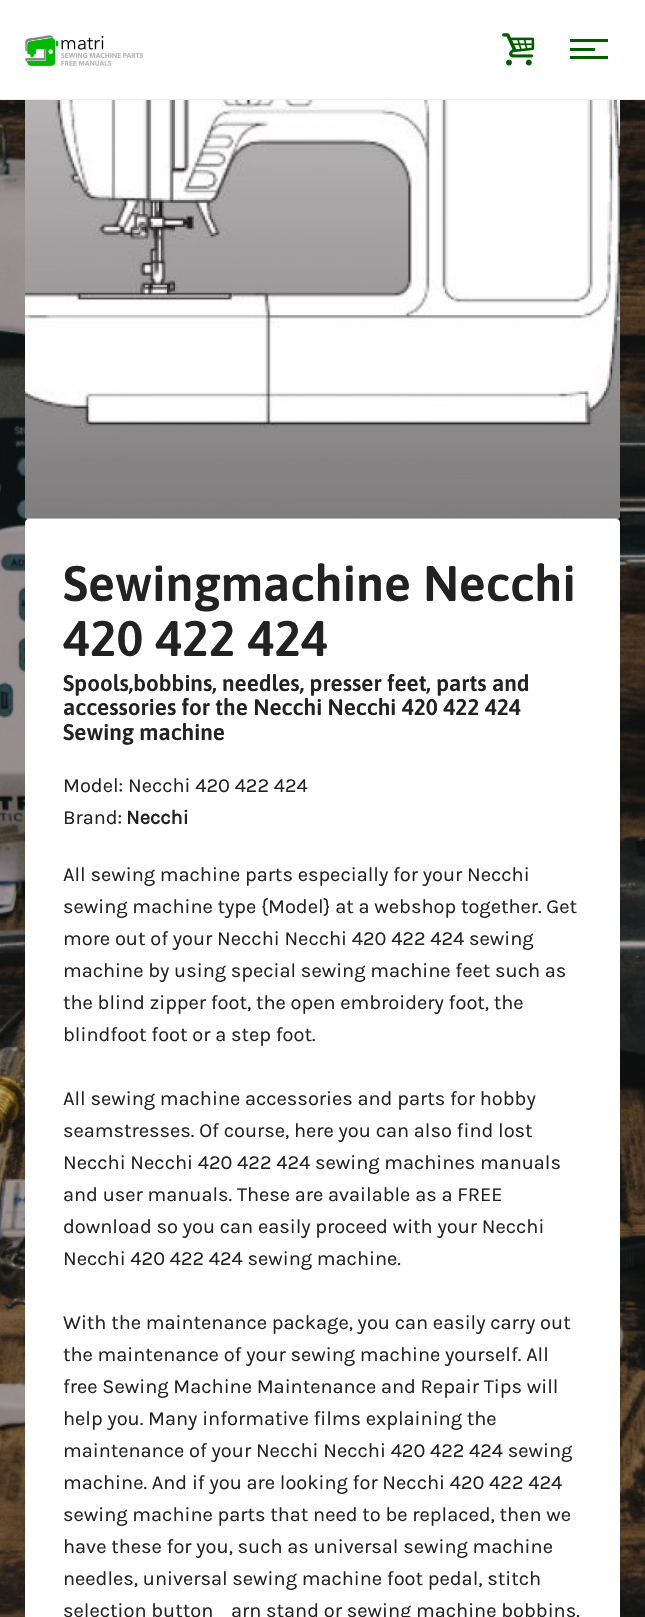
void draw(SkCanvas* canvas) {
    SkPaint paint;
    paint.setAntiAlias(true);
    canvas->clear(0xFFFFFFFF);
    canvas->drawImageRect(SkImages::DeferredFromEncodedData(SkData::MakeFromFileName("img3.png")), SkRect::MakeXYWH(0, 100, 645, 1517), SkSamplingOptions());
    paint.setColor(0xFFFFFFFF);
    canvas->drawRoundRect(SkRect::MakeXYWH(25, -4, 595, 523), 4, 4, paint);
    paint.setColor(0xFFEEEEEE);
    canvas->drawRect(SkRect::MakeXYWH(0, 99, 645, 1), paint);
    canvas->drawImageRect(SkImages::DeferredFromEncodedData(SkData::MakeFromFileName("img1.png")), SkRect::MakeXYWH(25, 35, 119, 31), SkSamplingOptions());
    canvas->drawImageRect(SkImages::DeferredFromEncodedData(SkData::MakeFromFileName("img2.png")), SkRect::MakeXYWH(502, 33, 33, 33), SkSamplingOptions());
    paint.setColor(0xFF005E00);
    canvas->drawRect(SkRect::MakeXYWH(570, 39, 38, 3), paint);
    canvas->drawRect(SkRect::MakeXYWH(570, 48, 25, 3), paint);
    canvas->drawRect(SkRect::MakeXYWH(570, 56, 38, 3), paint);
    canvas->drawImageRect(SkImages::DeferredFromEncodedData(SkData::MakeFromFileName("img4.png")), SkRect::MakeXYWH(25, 100, 595, 419), SkSamplingOptions());
    paint.setColor(0xFFFFFFFF);
    canvas->drawRoundRect(SkRect::MakeXYWH(25, 519, 595, 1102), 4, 4, paint);
    SkFont font1(fontMgr->matchFamilyStyle("Asap", SkFontStyle(600, SkFontStyle::kNormal_Width, SkFontStyle::kUpright_Slant)), 50);
    font1.setSubpixel(true);
    paint.setColor(0xFF222222);
    canvas->drawString("Sewingmachine Necchi", 63, 601, font1, paint);
    canvas->drawString("420 422 424", 63, 656, font1, paint);
    SkFont font2(fontMgr->matchFamilyStyle("Asap", SkFontStyle(600, SkFontStyle::kNormal_Width, SkFontStyle::kUpright_Slant)), 22.5f);
    font2.setSubpixel(true);
    canvas->drawString("Spools,bobbins, needles, presser feet, parts and", 63, 691, font2, paint);
    canvas->drawString("accessories for the Necchi Necchi 420 422 424", 63, 715, font2, paint);
    canvas->drawString("Sewing machine", 63, 740, font2, paint);
    SkFont font3(fontMgr->matchFamilyStyle("Karla", SkFontStyle::Normal()), 20);
    font3.setSubpixel(true);
    canvas->drawString("Model: Necchi 420 422 424", 63, 792, font3, paint);
    canvas->drawString("Brand:", 63, 824, font3, paint);
    SkFont font4(fontMgr->matchFamilyStyle("Karla", SkFontStyle::Bold()), 20);
    font4.setSubpixel(true);
    canvas->drawString("Necchi", 126, 824, font4, paint);
    canvas->drawString("All sewing machine parts especially for your Necchi", 63, 881, font3, paint);
    canvas->drawString("sewing machine type {Model} at a webshop together. Get", 63, 913, font3, paint);
    canvas->drawString("more out of your Necchi Necchi 420 422 424 sewing", 63, 945, font3, paint);
    canvas->drawString("machine by using special sewing machine feet such as", 63, 977, font3, paint);
    canvas->drawString("the blind zipper foot, the open embroidery foot, the", 63, 1009, font3, paint);
    canvas->drawString("blindfoot foot or a step foot.", 63, 1041, font3, paint);
    canvas->drawString("All sewing machine accessories and parts for hobby", 63, 1105, font3, paint);
    canvas->drawString("seamstresses. Of course, here you can also find lost", 63, 1137, font3, paint);
    canvas->drawString("Necchi Necchi 420 422 424 sewing machines manuals", 63, 1169, font3, paint);
    canvas->drawString("and user manuals. These are available as a FREE", 63, 1201, font3, paint);
    canvas->drawString("download so you can easily proceed with your Necchi", 63, 1233, font3, paint);
    canvas->drawString("Necchi 420 422 424 sewing machine.", 63, 1265, font3, paint);
    canvas->drawString("With the maintenance package, you can easily carry out", 63, 1329, font3, paint);
    canvas->drawString("the maintenance of your sewing machine yourself. All", 63, 1361, font3, paint);
    canvas->drawString("free Sewing Machine Maintenance and Repair Tips will", 63, 1393, font3, paint);
    canvas->drawString("help you. Many informative films explaining the", 63, 1425, font3, paint);
    canvas->drawString("maintenance of your Necchi Necchi 420 422 424 sewing", 63, 1457, font3, paint);
    canvas->drawString("machine. And if you are looking for Necchi 420 422 424", 63, 1489, font3, paint);
    canvas->drawString("sewing machine parts that need to be replaced, then we", 63, 1521, font3, paint);
    canvas->drawString("have these for you, such as universal sewing machine", 63, 1553, font3, paint);
    canvas->drawString("needles, universal sewing machine foot pedal, stitch", 63, 1585, font3, paint);
    canvas->drawString("selection button", 63, 1617, font3, paint);
    canvas->drawString("arn stand or sewing machine bobbins.", 231, 1617, font3, paint);
}
